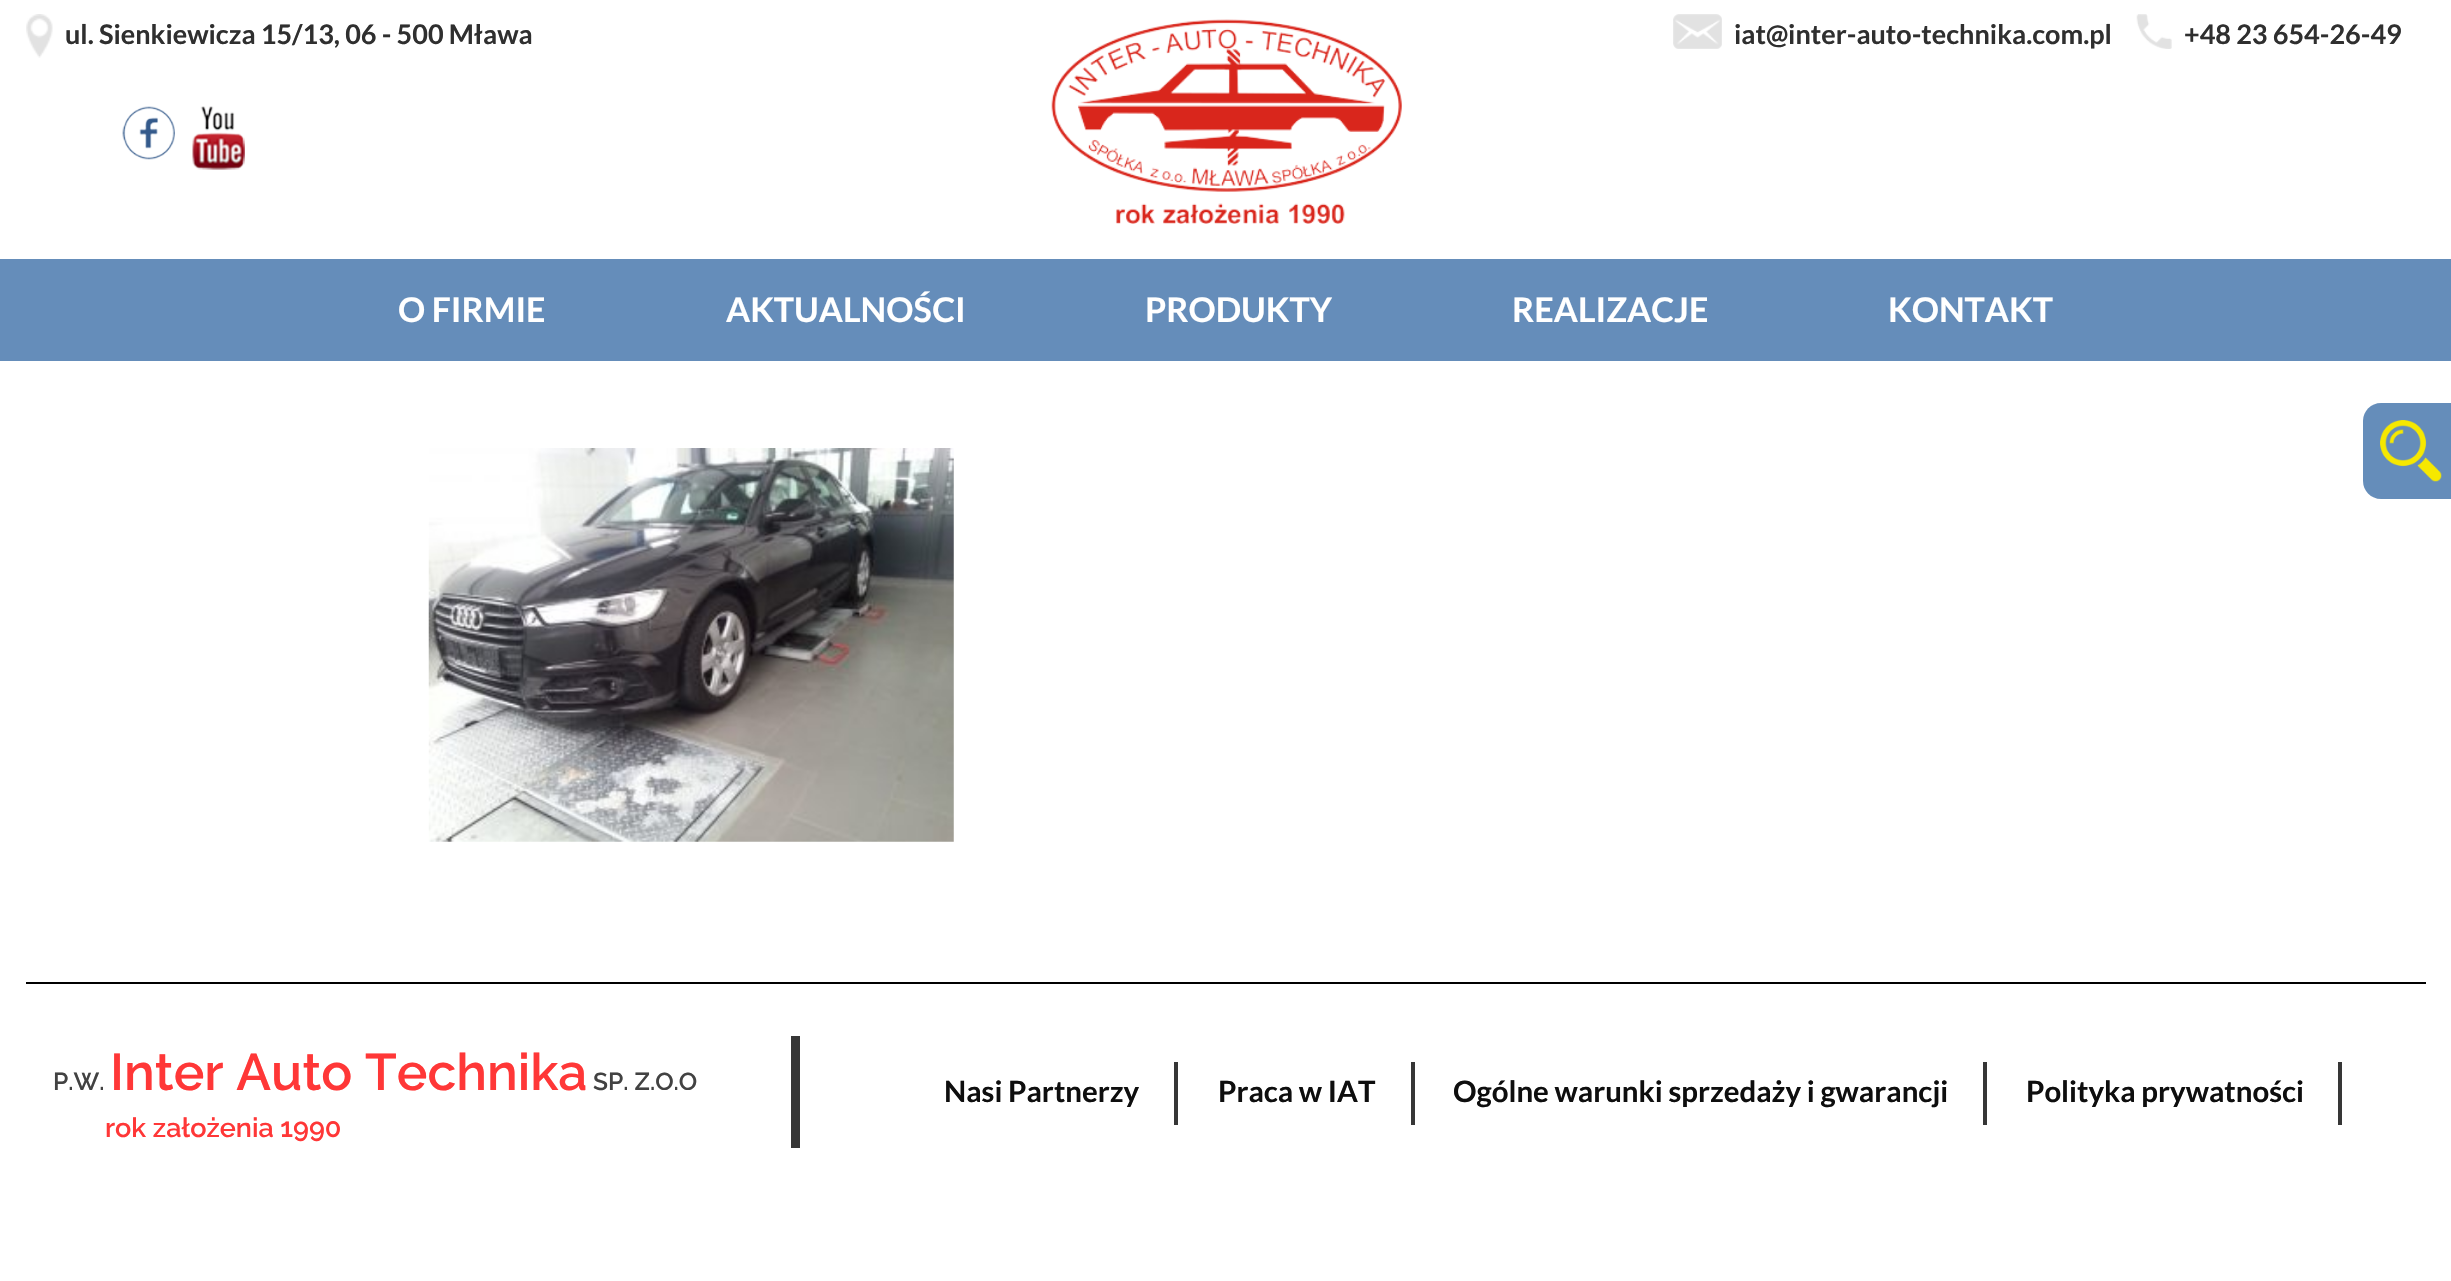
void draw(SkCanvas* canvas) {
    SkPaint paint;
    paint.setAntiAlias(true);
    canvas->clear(0xFFFFFFFF);
    canvas->drawImageRect(SkImages::DeferredFromEncodedData(SkData::MakeFromFileName("img1.png")), SkRect::MakeXYWH(122, 106, 53, 54), SkSamplingOptions());
    canvas->drawImageRect(SkImages::DeferredFromEncodedData(SkData::MakeFromFileName("img2.png")), SkRect::MakeXYWH(192, 106, 53, 64), SkSamplingOptions());
    canvas->drawImageRect(SkImages::DeferredFromEncodedData(SkData::MakeFromFileName("img3.png")), SkRect::MakeXYWH(1051, 19, 351, 205), SkSamplingOptions());
    canvas->drawImageRect(SkImages::DeferredFromEncodedData(SkData::MakeFromFileName("img4.png")), SkRect::MakeXYWH(26, 14, 27, 44), SkSamplingOptions());
    SkFont font1(fontMgr->matchFamilyStyle("Lato", SkFontStyle::Bold()), 27);
    font1.setSubpixel(true);
    paint.setColor(0xFF2F2F2F);
    canvas->drawString("ul. Sienkiewicza 15/13, 06 - 500 Mława", 65, 44, font1, paint);
    canvas->drawImageRect(SkImages::DeferredFromEncodedData(SkData::MakeFromFileName("img5.png")), SkRect::MakeXYWH(1673, 14, 49, 35), SkSamplingOptions());
    canvas->drawString("iat@inter-auto-technika.com.pl", 1734, 44, font1, paint);
    canvas->drawImageRect(SkImages::DeferredFromEncodedData(SkData::MakeFromFileName("img6.png")), SkRect::MakeXYWH(2136, 14, 36, 35), SkSamplingOptions());
    canvas->drawString("+48 23 654-26-49", 2184, 44, font1, paint);
    paint.setColor(0xFF658DBA);
    canvas->drawRect(SkRect::MakeXYWH(0, 259, 2451, 102), paint);
    SkFont font2(fontMgr->matchFamilyStyle("Lato", SkFontStyle::Bold()), 34);
    font2.setSubpixel(true);
    paint.setColor(0xFFFFFFFF);
    canvas->drawString("O FIRMIE", 398, 322, font2, paint);
    canvas->drawString("AKTUALNOŚCI", 726, 322, font2, paint);
    canvas->drawString("PRODUKTY", 1145, 322, font2, paint);
    canvas->drawString("REALIZACJE", 1512, 322, font2, paint);
    canvas->drawString("KONTAKT", 1888, 322, font2, paint);
    canvas->drawImageRect(SkImages::DeferredFromEncodedData(SkData::MakeFromFileName("img7.png")), SkRect::MakeXYWH(428, 448, 526, 394), SkSamplingOptions());
    paint.setColor(0xFF000000);
    canvas->drawRect(SkRect::MakeXYWH(26, 982, 2400, 2), paint);
    paint.setColor(0xFF363636);
    canvas->drawRect(SkRect::MakeXYWH(791, 1036, 9, 112), paint);
    SkFont font3(fontMgr->matchFamilyStyle("Raleway", SkFontStyle(600, SkFontStyle::kNormal_Width, SkFontStyle::kUpright_Slant)), 24.5f);
    font3.setSubpixel(true);
    paint.setColor(0xFF424242);
    canvas->drawString("P.W.", 53, 1090, font3, paint);
    SkFont font4(fontMgr->matchFamilyStyle("Raleway", SkFontStyle(600, SkFontStyle::kNormal_Width, SkFontStyle::kUpright_Slant)), 51.5f);
    font4.setSubpixel(true);
    paint.setColor(0xFFFF3737);
    canvas->drawString("Inter Auto Technika", 110, 1090, font4, paint);
    paint.setColor(0xFF424242);
    canvas->drawString("SP. Z.O.O", 593, 1090, font3, paint);
    SkFont font5(fontMgr->matchFamilyStyle("Raleway", SkFontStyle(600, SkFontStyle::kNormal_Width, SkFontStyle::kUpright_Slant)), 27);
    font5.setSubpixel(true);
    paint.setColor(0xFFFF3737);
    canvas->drawString("rok założenia 1990", 105, 1137, font5, paint);
    paint.setColor(0xFF363636);
    canvas->drawRect(SkRect::MakeXYWH(1174, 1062, 4, 63), paint);
    SkFont font6(fontMgr->matchFamilyStyle("Lato", SkFontStyle::Bold()), 29.4f);
    font6.setSubpixel(true);
    paint.setColor(0xFF0E0E0E);
    canvas->drawString("Nasi Partnerzy", 944, 1102, font6, paint);
    paint.setColor(0xFF363636);
    canvas->drawRect(SkRect::MakeXYWH(1411, 1062, 4, 63), paint);
    paint.setColor(0xFF0E0E0E);
    canvas->drawString("Praca w IAT", 1218, 1102, font6, paint);
    paint.setColor(0xFF363636);
    canvas->drawRect(SkRect::MakeXYWH(1983, 1062, 4, 63), paint);
    paint.setColor(0xFF0E0E0E);
    canvas->drawString("Ogólne warunki sprzedaży i gwarancji", 1453, 1102, font6, paint);
    paint.setColor(0xFF363636);
    canvas->drawRect(SkRect::MakeXYWH(2338, 1062, 4, 63), paint);
    paint.setColor(0xFF0E0E0E);
    canvas->drawString("Polityka prywatności", 2026, 1102, font6, paint);
    paint.setColor(0xFF658DBA);
    canvas->drawPath(SkPathBuilder().moveTo(2381, 403).lineTo(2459, 403).lineTo(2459, 499).lineTo(2381, 499).cubicTo(2371, 499, 2363, 491, 2363, 481).lineTo(2363, 421).cubicTo(2363, 411, 2371, 403, 2381, 403).close().detach(), paint);
    canvas->drawImageRect(SkImages::DeferredFromEncodedData(SkData::MakeFromFileName("img8.png")), SkRect::MakeXYWH(2380, 420, 62, 62), SkSamplingOptions());
}
